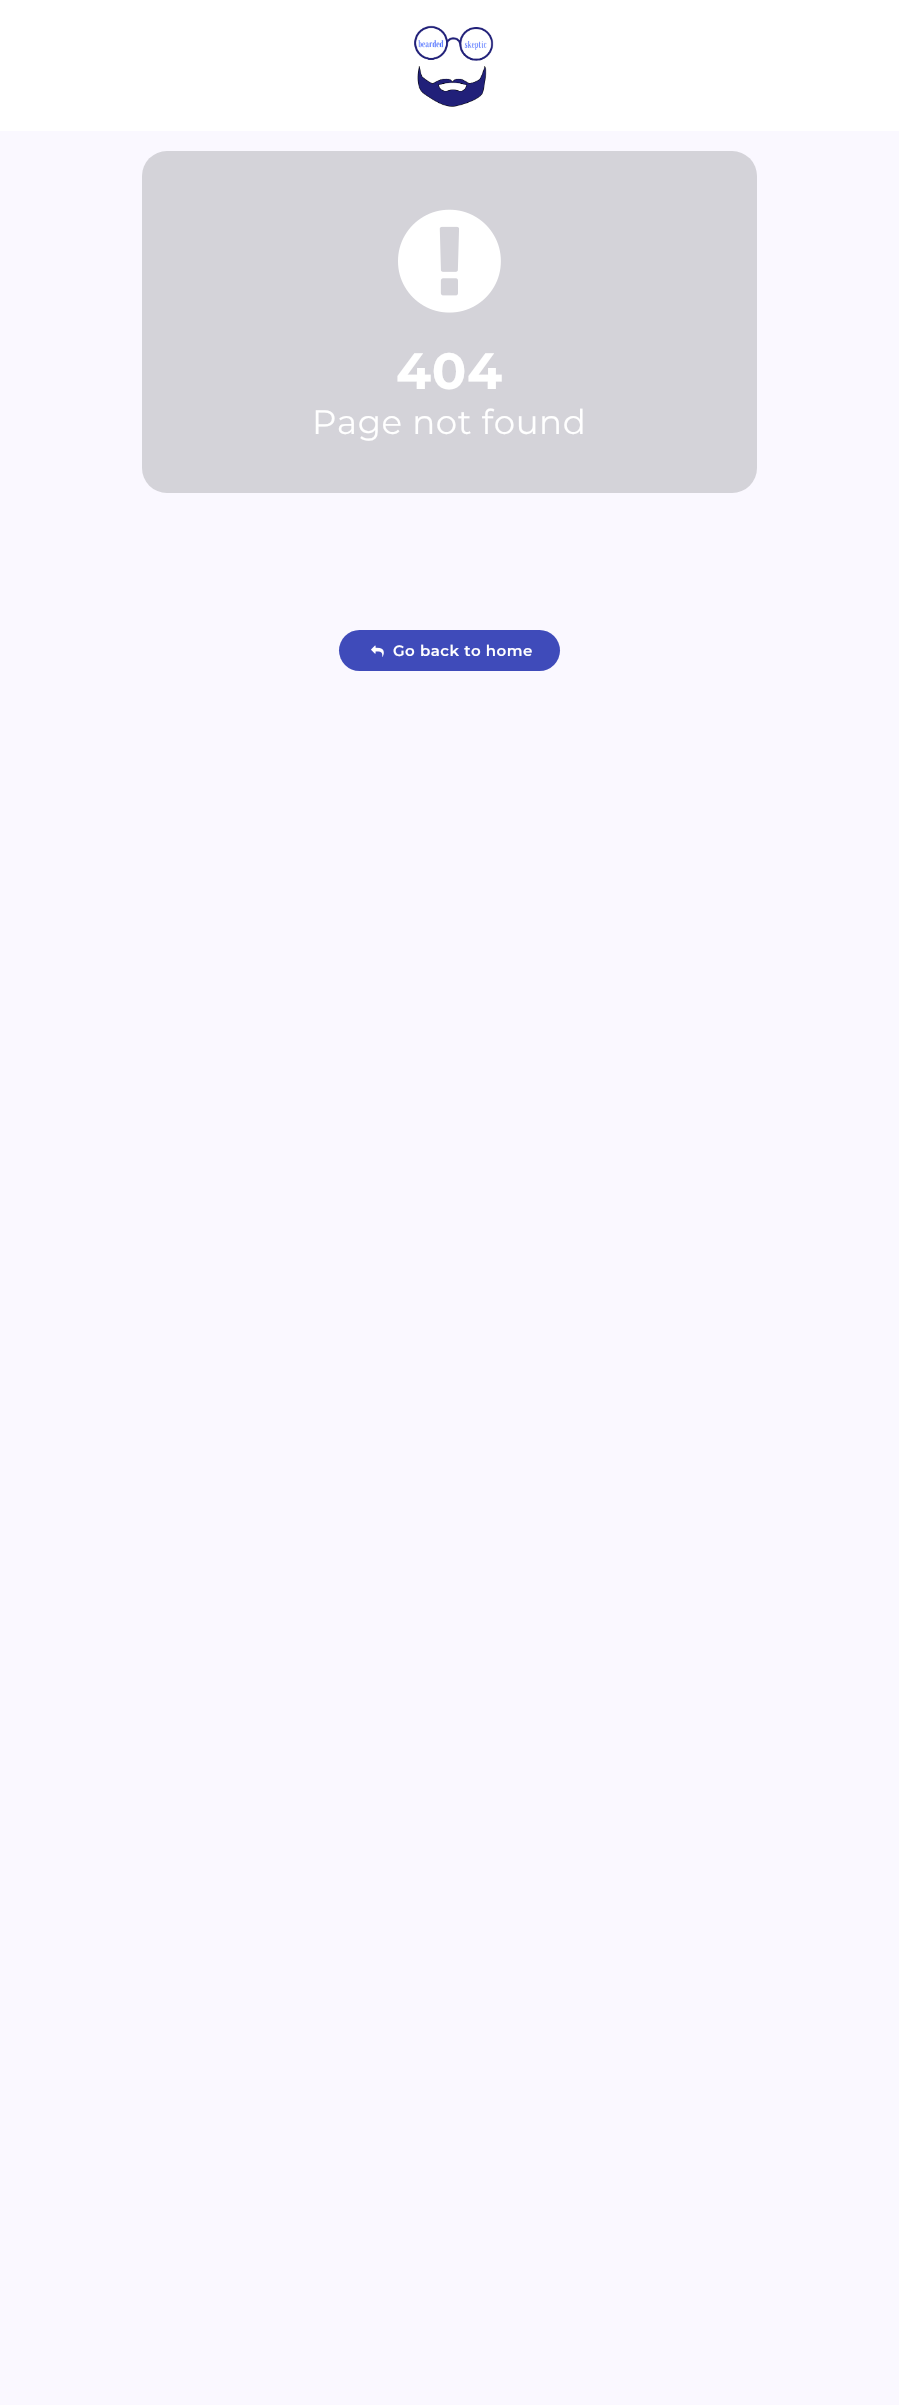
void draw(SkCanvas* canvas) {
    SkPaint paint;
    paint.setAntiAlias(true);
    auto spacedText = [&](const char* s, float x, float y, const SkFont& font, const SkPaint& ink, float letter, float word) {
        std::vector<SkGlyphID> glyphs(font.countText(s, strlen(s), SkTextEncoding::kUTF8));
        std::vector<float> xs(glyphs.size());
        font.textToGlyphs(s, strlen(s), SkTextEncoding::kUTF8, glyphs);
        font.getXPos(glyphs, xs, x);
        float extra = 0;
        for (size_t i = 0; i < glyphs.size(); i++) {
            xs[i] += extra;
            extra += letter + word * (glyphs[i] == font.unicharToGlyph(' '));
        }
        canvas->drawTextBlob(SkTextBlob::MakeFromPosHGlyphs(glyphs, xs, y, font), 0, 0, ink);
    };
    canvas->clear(0xFFFAF8FF);
    paint.setColor(0xFFFFFFFF);
    canvas->drawRect(SkRect::MakeXYWH(0, 0, 899, 131), paint);
    canvas->drawImageRect(SkImages::DeferredFromEncodedData(SkData::MakeFromFileName("img1.png")), SkRect::MakeXYWH(414, 25, 80, 82), SkSamplingOptions());
    paint.setColor(0xFFD4D3D9);
    canvas->drawRoundRect(SkRect::MakeXYWH(142, 151, 615, 342), 25, 25, paint);
    canvas->drawImageRect(SkImages::DeferredFromEncodedData(SkData::MakeFromFileName("img2.png")), SkRect::MakeXYWH(398, 209, 103, 104), SkSamplingOptions());
    SkFont font1(fontMgr->matchFamilyStyle("Montserrat", SkFontStyle::Bold()), 51);
    font1.setSubpixel(true);
    paint.setColor(0xFFFFFFFF);
    spacedText("404", 396, 389, font1, paint, 0.6f, 0);
    SkFont font2(fontMgr->matchFamilyStyle("Montserrat", SkFontStyle::Normal()), 34);
    font2.setSubpixel(true);
    spacedText("Page not found", 312, 434, font2, paint, 0.6f, 0);
    paint.setColor(0xFF3F4BBA);
    canvas->drawRoundRect(SkRect::MakeXYWH(339, 630, 221, 41), 20.5f, 20.5f, paint);
    canvas->drawImageRect(SkImages::DeferredFromEncodedData(SkData::MakeFromFileName("img3.png")), SkRect::MakeXYWH(371, 645, 13, 12), SkSamplingOptions());
    SkFont font3(fontMgr->matchFamilyStyle("Montserrat", SkFontStyle(600, SkFontStyle::kNormal_Width, SkFontStyle::kUpright_Slant)), 15);
    font3.setSubpixel(true);
    paint.setColor(0xFFFFFFFF);
    spacedText("Go back to home", 393, 656, font3, paint, 0.5f, 0);
}
